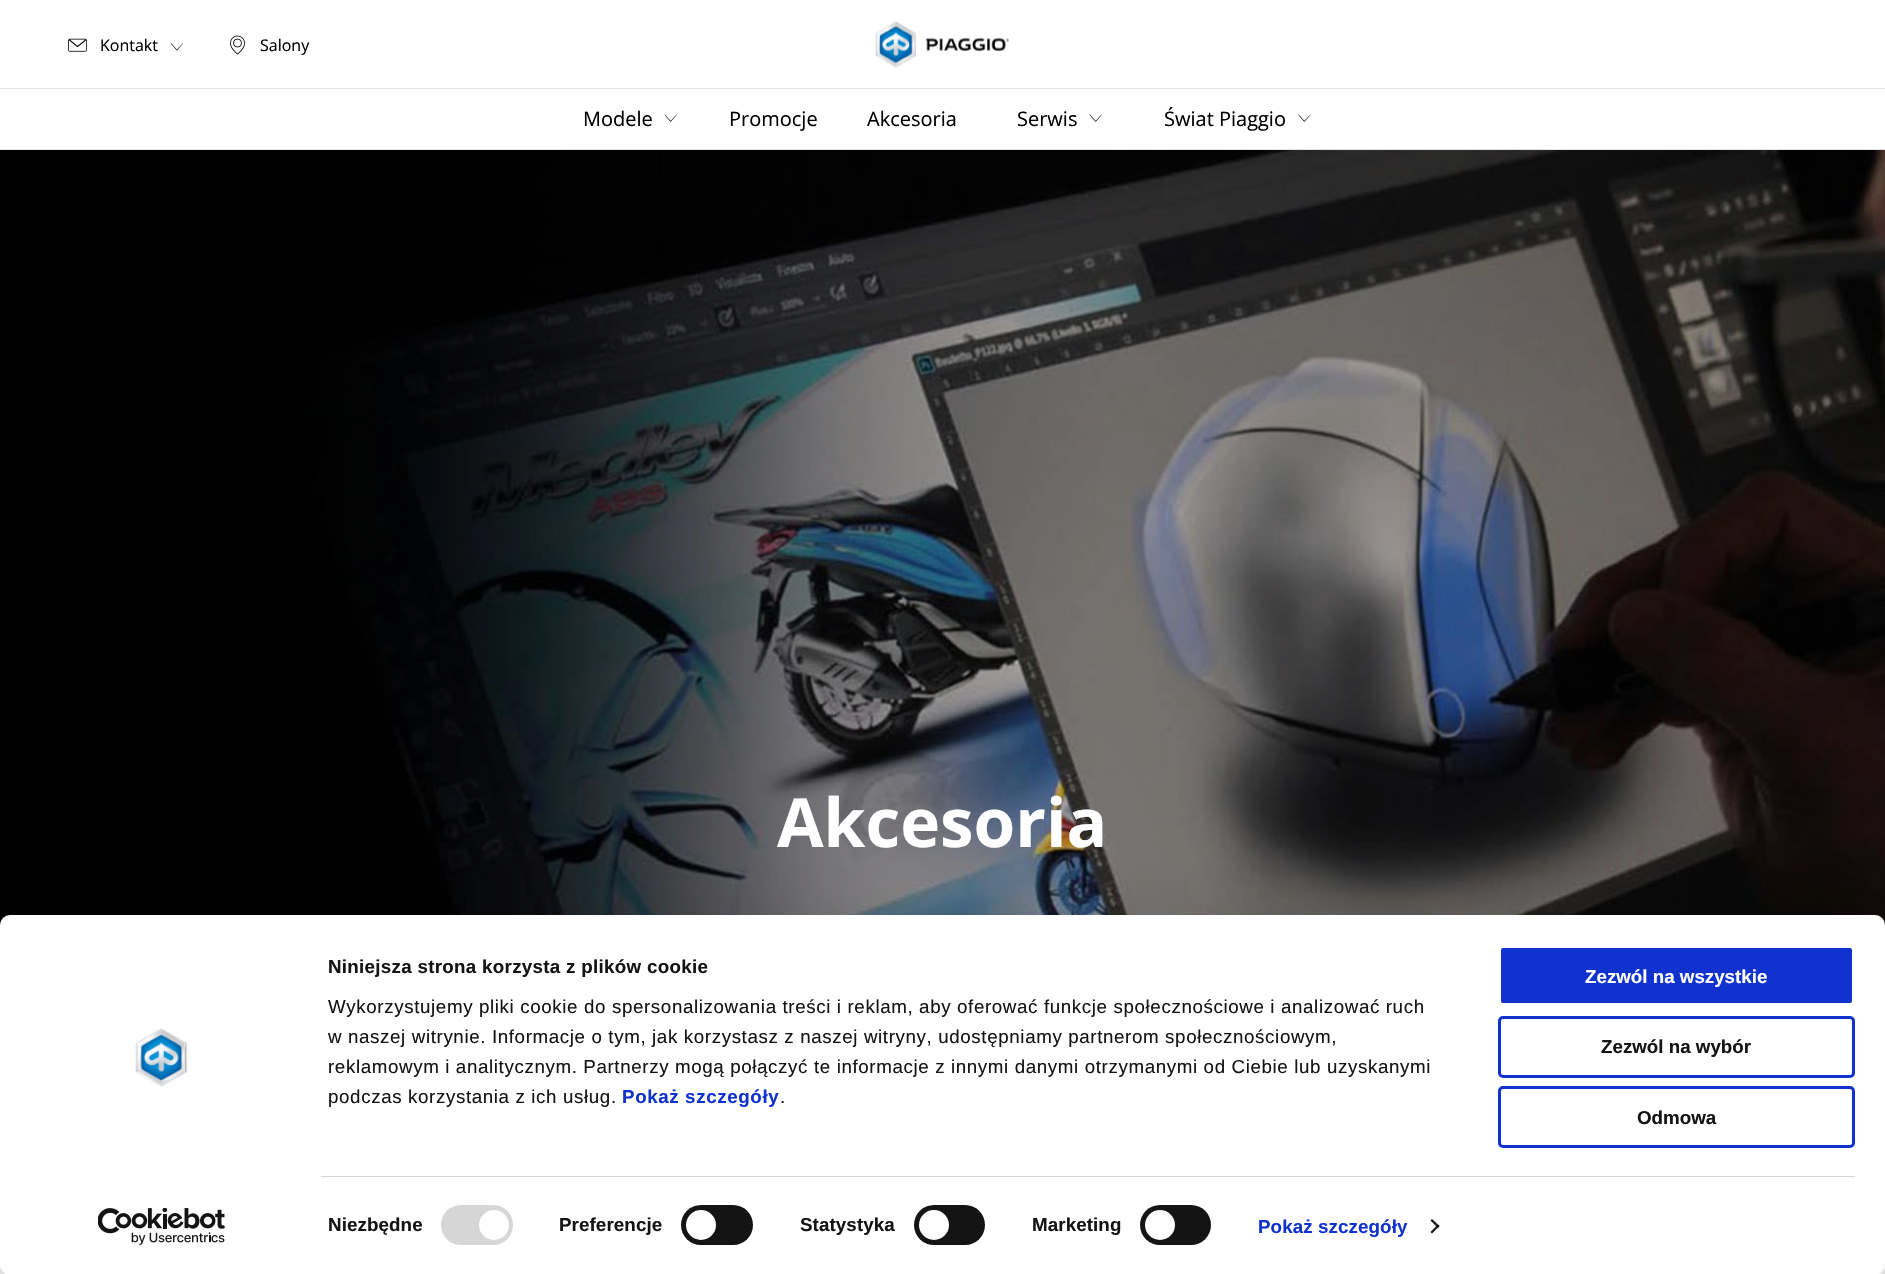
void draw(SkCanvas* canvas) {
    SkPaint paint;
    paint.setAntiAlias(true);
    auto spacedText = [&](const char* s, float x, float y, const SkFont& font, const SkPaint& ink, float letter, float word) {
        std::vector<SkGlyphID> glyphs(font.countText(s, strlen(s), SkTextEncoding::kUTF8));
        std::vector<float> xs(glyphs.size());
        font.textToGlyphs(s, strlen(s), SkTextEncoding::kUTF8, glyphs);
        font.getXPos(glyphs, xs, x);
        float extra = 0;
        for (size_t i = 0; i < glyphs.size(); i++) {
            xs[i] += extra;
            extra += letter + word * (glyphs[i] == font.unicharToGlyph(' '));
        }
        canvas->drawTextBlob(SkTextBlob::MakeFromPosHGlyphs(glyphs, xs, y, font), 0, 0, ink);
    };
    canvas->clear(0xFFFFFFFF);
    canvas->drawImageRect(SkImages::DeferredFromEncodedData(SkData::MakeFromFileName("img1.png")), SkRect::MakeXYWH(68, 38, 19, 14), SkSamplingOptions());
    SkFont font1(fontMgr->matchFamilyStyle("Open Sans", SkFontStyle::Normal()), 16);
    font1.setSubpixel(true);
    paint.setColor(0xFF000000);
    canvas->drawString("Kontakt", 100, 51, font1, paint);
    canvas->drawImageRect(SkImages::DeferredFromEncodedData(SkData::MakeFromFileName("img2.png")), SkRect::MakeXYWH(170, 43, 13, 8), SkSamplingOptions());
    canvas->drawImageRect(SkImages::DeferredFromEncodedData(SkData::MakeFromFileName("img3.png")), SkRect::MakeXYWH(230, 35, 15, 20), SkSamplingOptions());
    canvas->drawString("Salony", 260, 51, font1, paint);
    canvas->drawImageRect(SkImages::DeferredFromEncodedData(SkData::MakeFromFileName("img4.png")), SkRect::MakeXYWH(875, 21, 134, 47), SkSamplingOptions());
    paint.setColor(0xFFE5E5E5);
    canvas->drawRect(SkRect::MakeXYWH(0, 88, 1885, 1), paint);
    canvas->drawRect(SkRect::MakeXYWH(0, 149, 1885, 1), paint);
    SkFont font2(fontMgr->matchFamilyStyle("Open Sans", SkFontStyle::Normal()), 20);
    font2.setSubpixel(true);
    paint.setColor(0xFF000000);
    canvas->drawString("Modele", 583, 126, font2, paint);
    canvas->drawImageRect(SkImages::DeferredFromEncodedData(SkData::MakeFromFileName("img5.png")), SkRect::MakeXYWH(664, 114, 13, 8), SkSamplingOptions());
    canvas->drawString("Promocje", 729, 126, font2, paint);
    canvas->drawString("Akcesoria", 867, 126, font2, paint);
    canvas->drawString("Serwis", 1017, 126, font2, paint);
    canvas->drawImageRect(SkImages::DeferredFromEncodedData(SkData::MakeFromFileName("img5.png")), SkRect::MakeXYWH(1089, 114, 13, 8), SkSamplingOptions());
    canvas->drawString("Świat Piaggio", 1164, 126, font2, paint);
    canvas->drawImageRect(SkImages::DeferredFromEncodedData(SkData::MakeFromFileName("img6.png")), SkRect::MakeXYWH(1298, 114, 13, 8), SkSamplingOptions());
    canvas->drawImageRect(SkImages::DeferredFromEncodedData(SkData::MakeFromFileName("img7.png")), SkRect::MakeXYWH(0, 150, 1885, 775), SkSamplingOptions());
    SkFont font3(fontMgr->matchFamilyStyle("Open Sans", SkFontStyle::Bold()), 67.5f);
    font3.setSubpixel(true);
    paint.setColor(0xFFFFFFFF);
    canvas->drawString("Akcesoria", 777, 847, font3, paint);
    paint.setColor(0x4D000000);
    paint.setMaskFilter(SkMaskFilter::MakeBlur(kNormal_SkBlurStyle, 44));
    canvas->drawRoundRect(SkRect::MakeXYWH(0, 953, 1885, 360), 10, 10, paint);
    paint.setMaskFilter(nullptr);
    paint.setColor(0xFFFFFFFF);
    canvas->drawRoundRect(SkRect::MakeXYWH(0, 915, 1885, 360), 10, 10, paint);
    canvas->drawImageRect(SkImages::DeferredFromEncodedData(SkData::MakeFromFileName("img8.png")), SkRect::MakeXYWH(135, 1028, 53, 59), SkSamplingOptions());
    canvas->drawImageRect(SkImages::DeferredFromEncodedData(SkData::MakeFromFileName("img9.png")), SkRect::MakeXYWH(98, 1208, 127, 37), SkSamplingOptions());
    SkFont font4(fontMgr->matchFamilyStyle("Liberation Sans", SkFontStyle::Bold()), 18.75f);
    font4.setSubpixel(true);
    paint.setColor(0xFF141414);
    spacedText("Niniejsza strona korzysta z plików cookie", 328, 973, font4, paint, 0.3f, 0);
    SkFont font5(fontMgr->matchFamilyStyle("Liberation Sans", SkFontStyle::Normal()), 18.75f);
    font5.setSubpixel(true);
    spacedText("Wykorzystujemy pliki cookie do spersonalizowania treści i reklam, aby oferować funkcje społecznościowe i analizować ruch", 328, 1013, font5, paint, 0.62f, 0);
    spacedText("w naszej witrynie. Informacje o tym, jak korzystasz z naszej witryny, udostępniamy partnerom społecznościowym,", 328, 1043, font5, paint, 0.62f, 0);
    spacedText("reklamowym i analitycznym. Partnerzy mogą połączyć te informacje z innymi danymi otrzymanymi od Ciebie lub uzyskanymi", 328, 1073, font5, paint, 0.62f, 0);
    spacedText("podczas korzystania z ich usług.", 328, 1103, font5, paint, 0.62f, 0);
    paint.setColor(0xFF1032CF);
    spacedText("Pokaż szczegóły", 622, 1103, font4, paint, 0.62f, 0);
    paint.setColor(0xFF141414);
    spacedText(".", 780, 1103, font5, paint, 0.62f, 0);
    paint.setColor(0xFFD6D6D6);
    canvas->drawRect(SkRect::MakeXYWH(321, 1176, 1534, 1), paint);
    paint.setColor(0xFF141414);
    spacedText("Niezbędne", 328, 1231, font4, paint, 0.1f, 0);
    paint.setColor(0xFFD6D6D6);
    canvas->drawRoundRect(SkRect::MakeXYWH(441, 1205, 72, 40), 20, 20, paint);
    paint.setColor(0xFFFFFFFF);
    canvas->drawCircle(494, 1225, 15, paint);
    paint.setColor(0xFF141414);
    spacedText("Preferencje", 559, 1231, font4, paint, 0.1f, 0);
    canvas->drawRoundRect(SkRect::MakeXYWH(681, 1205, 72, 40), 20, 20, paint);
    paint.setColor(0xFFFFFFFF);
    canvas->drawCircle(701, 1225, 15, paint);
    paint.setColor(0xFF141414);
    spacedText("Statystyka", 800, 1231, font4, paint, 0.1f, 0);
    canvas->drawRoundRect(SkRect::MakeXYWH(914, 1205, 71, 40), 20, 20, paint);
    paint.setColor(0xFFFFFFFF);
    canvas->drawCircle(934, 1225, 15, paint);
    paint.setColor(0xFF141414);
    spacedText("Marketing", 1032, 1231, font4, paint, 0.1f, 0);
    canvas->drawRoundRect(SkRect::MakeXYWH(1140, 1205, 71, 40), 20, 20, paint);
    paint.setColor(0xFFFFFFFF);
    canvas->drawCircle(1160, 1225, 15, paint);
    paint.setColor(0xFF1032CF);
    spacedText("Pokaż szczegóły", 1258, 1233, font4, paint, 0.1f, 0);
    paint.setColor(0xFF141414);
    canvas->drawPath(SkPathBuilder().moveTo(1432, 1219).lineTo(1439.5f, 1226).lineTo(1438, 1228).lineTo(1430.5f, 1220.5f).close().detach(), paint);
    canvas->drawPath(SkPathBuilder().moveTo(1438, 1224.5f).lineTo(1439.5f, 1226).lineTo(1432, 1233.5f).lineTo(1430.5f, 1232).close().detach(), paint);
    paint.setColor(0xFF1032CF);
    canvas->drawRoundRect(SkRect::MakeXYWH(1499.5f, 946.5f, 354, 58), 3.5f, 3.5f, paint);
    paint.setStyle(SkPaint::kStroke_Style);
    paint.setStrokeWidth(3);
    paint.setColor(0xFFFFFFFF);
    canvas->drawRoundRect(SkRect::MakeXYWH(1499.5f, 946.5f, 354, 58), 3.5f, 3.5f, paint);
    paint.setStyle(SkPaint::kFill_Style);
    canvas->drawString("Zezwól na wszystkie", 1585, 983, font4, paint);
    paint.setStyle(SkPaint::kStroke_Style);
    paint.setColor(0xFF1032CF);
    canvas->drawRoundRect(SkRect::MakeXYWH(1499.5f, 1017.5f, 354, 59), 3.5f, 3.5f, paint);
    paint.setStyle(SkPaint::kFill_Style);
    paint.setColor(0xFF141414);
    canvas->drawString("Zezwól na wybór", 1601, 1053, font4, paint);
    paint.setStyle(SkPaint::kStroke_Style);
    paint.setColor(0xFF1032CF);
    canvas->drawRoundRect(SkRect::MakeXYWH(1499.5f, 1087.5f, 354, 59), 3.5f, 3.5f, paint);
    paint.setStyle(SkPaint::kFill_Style);
    paint.setColor(0xFF141414);
    canvas->drawString("Odmowa", 1637, 1124, font4, paint);
}
